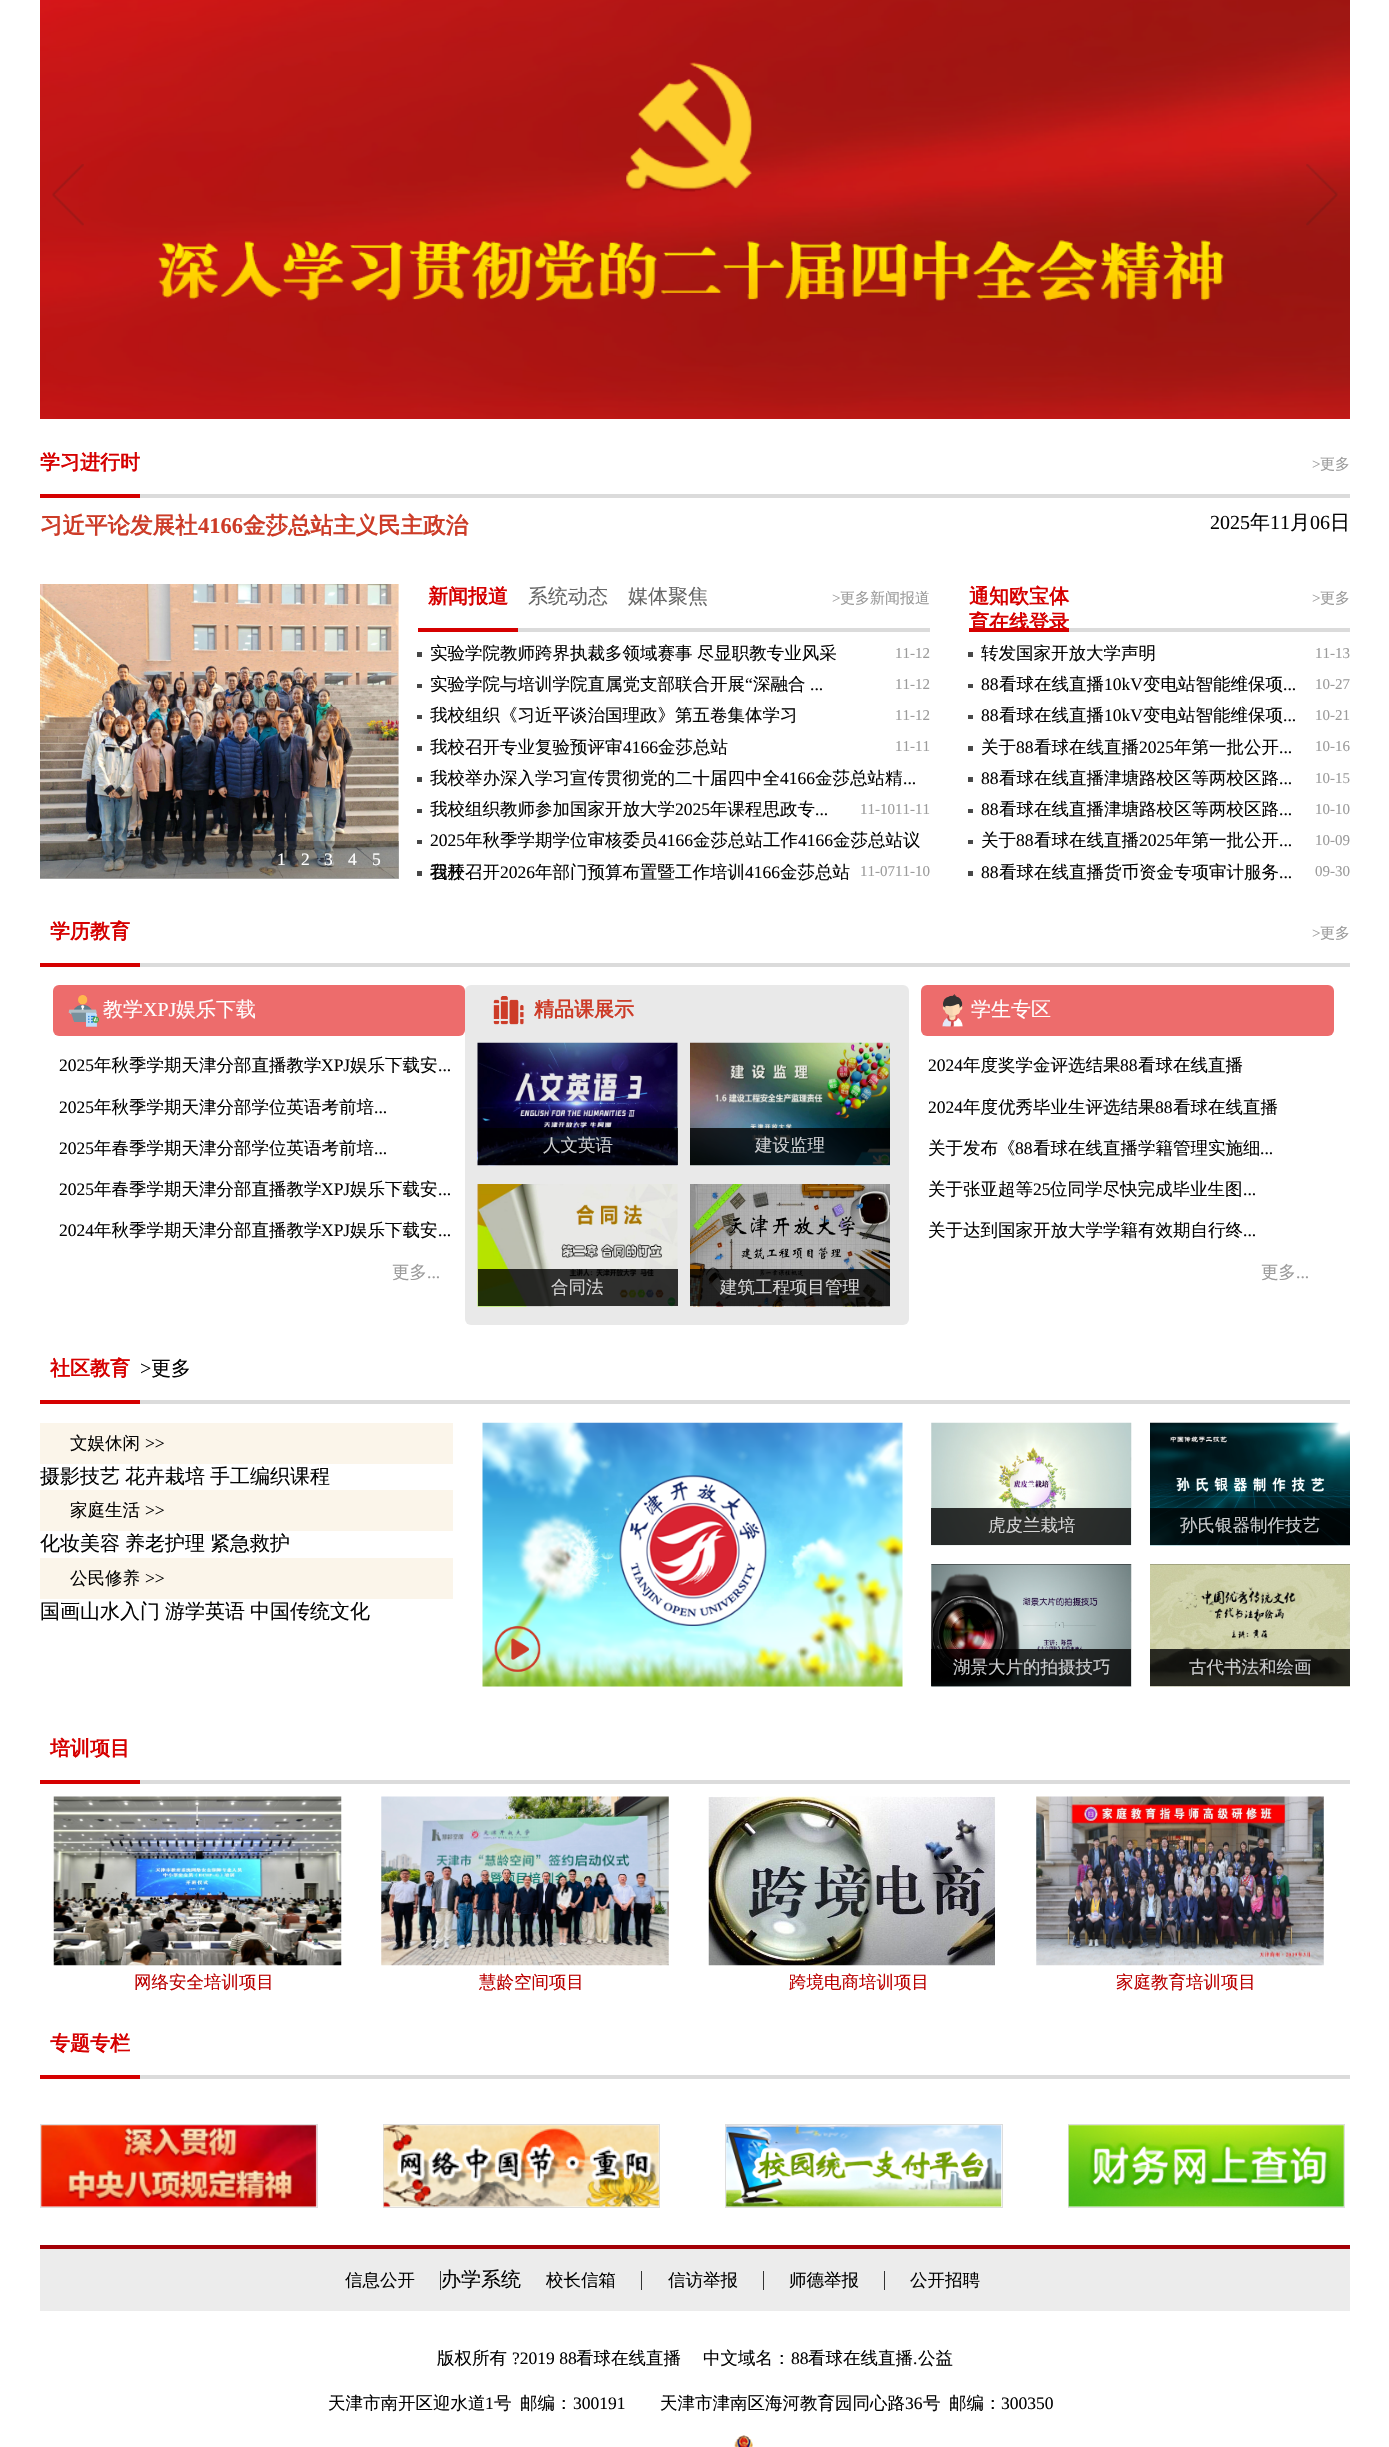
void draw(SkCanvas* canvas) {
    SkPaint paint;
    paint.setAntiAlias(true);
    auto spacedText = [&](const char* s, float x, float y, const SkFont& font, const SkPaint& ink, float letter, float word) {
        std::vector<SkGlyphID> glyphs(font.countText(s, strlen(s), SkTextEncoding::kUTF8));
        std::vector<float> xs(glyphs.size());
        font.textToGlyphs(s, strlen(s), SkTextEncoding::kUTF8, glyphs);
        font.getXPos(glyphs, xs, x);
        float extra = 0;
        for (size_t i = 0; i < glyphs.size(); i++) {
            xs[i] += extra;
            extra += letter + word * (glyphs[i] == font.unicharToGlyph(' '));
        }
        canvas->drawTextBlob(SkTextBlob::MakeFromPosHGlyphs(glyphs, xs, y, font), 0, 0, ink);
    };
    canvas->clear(0xFFFFFFFF);
    canvas->drawImageRect(SkImages::DeferredFromEncodedData(SkData::MakeFromFileName("img1.png")), SkRect::MakeXYWH(40, 0, 1310, 419), SkSamplingOptions());
    canvas->drawImageRect(SkImages::DeferredFromEncodedData(SkData::MakeFromFileName("img2.png")), SkRect::MakeXYWH(52, 164, 32, 62), SkSamplingOptions());
    canvas->drawImageRect(SkImages::DeferredFromEncodedData(SkData::MakeFromFileName("img3.png")), SkRect::MakeXYWH(1306, 164, 32, 62), SkSamplingOptions());
    paint.setColor(0xFFDBDBDB);
    canvas->drawRect(SkRect::MakeXYWH(140, 494, 1210, 4), paint);
    paint.setColor(0xFFD60000);
    canvas->drawRect(SkRect::MakeXYWH(40, 494, 100, 4), paint);
    SkFont font1(fontMgr->matchFamilyStyle("WenQuanYi Zen Hei", SkFontStyle::Bold()), 20);
    font1.setSubpixel(true);
    canvas->drawString("学习进行时", 40, 469, font1, paint);
    SkFont font2(fontMgr->matchFamilyStyle("Liberation Serif", SkFontStyle::Normal()), 15);
    font2.setSubpixel(true);
    paint.setColor(0xFF9B9B9B);
    canvas->drawString(">", 1312, 469, font2, paint);
    SkFont font3(fontMgr->matchFamilyStyle("WenQuanYi Zen Hei", SkFontStyle(500, SkFontStyle::kNormal_Width, SkFontStyle::kUpright_Slant)), 15);
    font3.setSubpixel(true);
    canvas->drawString("更多", 1320, 469, font3, paint);
    SkFont font4(fontMgr->matchFamilyStyle("WenQuanYi Zen Hei", SkFontStyle::Bold()), 22.5f);
    font4.setSubpixel(true);
    paint.setColor(0xFFCD3C28);
    canvas->drawString("习近平论发展社", 40, 533, font4, paint);
    SkFont font5(fontMgr->matchFamilyStyle("Liberation Serif", SkFontStyle::Bold()), 22.5f);
    font5.setSubpixel(true);
    canvas->drawString("4166", 198, 533, font5, paint);
    canvas->drawString("金莎总站主义民主政治", 243, 533, font4, paint);
    SkFont font6(fontMgr->matchFamilyStyle("Liberation Serif", SkFontStyle::Normal()), 20);
    font6.setSubpixel(true);
    paint.setColor(0xFF040404);
    canvas->drawString("2025", 1210, 529, font6, paint);
    SkFont font7(fontMgr->matchFamilyStyle("WenQuanYi Zen Hei", SkFontStyle(500, SkFontStyle::kNormal_Width, SkFontStyle::kUpright_Slant)), 20);
    font7.setSubpixel(true);
    canvas->drawString("年", 1250, 529, font7, paint);
    canvas->drawString("11", 1270, 529, font6, paint);
    canvas->drawString("月", 1290, 529, font7, paint);
    canvas->drawString("06", 1310, 529, font6, paint);
    canvas->drawString("日", 1330, 529, font7, paint);
    canvas->drawImageRect(SkImages::DeferredFromEncodedData(SkData::MakeFromFileName("img4.png")), SkRect::MakeXYWH(40, 584, 359, 295), SkSamplingOptions());
    paint.setColor(0x66333333);
    canvas->drawRect(SkRect::MakeXYWH(40, 841, 359, 38), paint);
    SkFont font8(fontMgr->matchFamilyStyle("Liberation Serif", SkFontStyle::Normal()), 17.5f);
    font8.setSubpixel(true);
    paint.setColor(0xFFFFFFFF);
    canvas->drawString("1", 277, 865, font8, paint);
    canvas->drawString("2", 301, 865, font8, paint);
    canvas->drawString("3", 324, 865, font8, paint);
    canvas->drawString("4", 348, 865, font8, paint);
    canvas->drawString("5", 372, 865, font8, paint);
    paint.setColor(0xFFDBDBDB);
    canvas->drawRect(SkRect::MakeXYWH(518, 628, 412, 4), paint);
    paint.setColor(0xFFD60000);
    canvas->drawRect(SkRect::MakeXYWH(418, 628, 100, 4), paint);
    canvas->drawString("新闻报道", 428, 603, font1, paint);
    paint.setColor(0xFF666666);
    canvas->drawString("系统动态", 528, 603, font7, paint);
    canvas->drawString("媒体聚焦", 628, 603, font7, paint);
    paint.setColor(0xFF9B9B9B);
    canvas->drawString(">", 832, 603, font2, paint);
    canvas->drawString("更多新闻报道", 840, 603, font3, paint);
    paint.setColor(0xFF474747);
    canvas->drawRect(SkRect::MakeXYWH(417, 652, 5, 5), paint);
    SkFont font9(fontMgr->matchFamilyStyle("WenQuanYi Zen Hei", SkFontStyle(500, SkFontStyle::kNormal_Width, SkFontStyle::kUpright_Slant)), 17.5f);
    font9.setSubpixel(true);
    paint.setColor(0xFF040404);
    spacedText("实验学院教师跨界执裁多领域赛事 尽显职教专业风采", 430, 659, font9, paint, 0, -1);
    paint.setColor(0xFF9B9B9B);
    canvas->drawString("11-12", 895, 658, font2, paint);
    paint.setColor(0xFF474747);
    canvas->drawRect(SkRect::MakeXYWH(417, 684, 5, 4), paint);
    paint.setColor(0xFF040404);
    canvas->drawString("实验学院与培训学院直属党支部联合开展", 430, 690, font9, paint);
    canvas->drawString("“", 745, 690, font8, paint);
    canvas->drawString("深融合", 753, 690, font9, paint);
    canvas->drawString("...", 810, 690, font8, paint);
    paint.setColor(0xFF9B9B9B);
    canvas->drawString("11-12", 895, 689, font2, paint);
    paint.setColor(0xFF474747);
    canvas->drawRect(SkRect::MakeXYWH(417, 715, 5, 4), paint);
    paint.setColor(0xFF040404);
    canvas->drawString("我校组织《习近平谈治国理政》第五卷集体学习", 430, 721, font9, paint);
    paint.setColor(0xFF9B9B9B);
    canvas->drawString("11-12", 895, 720, font2, paint);
    paint.setColor(0xFF474747);
    canvas->drawRect(SkRect::MakeXYWH(417, 746, 5, 5), paint);
    paint.setColor(0xFF040404);
    canvas->drawString("我校召开专业复验预评审", 430, 753, font9, paint);
    canvas->drawString("4166", 623, 753, font8, paint);
    canvas->drawString("金莎总站", 658, 753, font9, paint);
    paint.setColor(0xFF9B9B9B);
    canvas->drawString("11-11", 895, 751, font2, paint);
    paint.setColor(0xFF474747);
    canvas->drawRect(SkRect::MakeXYWH(417, 777, 5, 5), paint);
    paint.setColor(0xFF040404);
    canvas->drawString("我校举办深入学习宣传贯彻党的二十届四中全", 430, 784, font9, paint);
    canvas->drawString("4166", 780, 784, font8, paint);
    canvas->drawString("金莎总站精", 815, 784, font9, paint);
    canvas->drawString("...", 903, 784, font8, paint);
    paint.setColor(0xFF9B9B9B);
    canvas->drawString("11-11", 895, 814, font2, paint);
    paint.setColor(0xFF474747);
    canvas->drawRect(SkRect::MakeXYWH(417, 809, 5, 4), paint);
    paint.setColor(0xFF040404);
    canvas->drawString("我校组织教师参加国家开放大学", 430, 815, font9, paint);
    canvas->drawString("2025", 675, 815, font8, paint);
    canvas->drawString("年课程思政专", 710, 815, font9, paint);
    canvas->drawString("...", 815, 815, font8, paint);
    paint.setColor(0xFF9B9B9B);
    canvas->drawString("11-10", 860, 814, font2, paint);
    paint.setColor(0xFF474747);
    canvas->drawRect(SkRect::MakeXYWH(417, 840, 5, 4), paint);
    paint.setColor(0xFF040404);
    canvas->drawString("2025", 430, 846, font8, paint);
    canvas->drawString("年秋季学期学位审核委员", 465, 846, font9, paint);
    canvas->drawString("4166", 658, 846, font8, paint);
    canvas->drawString("金莎总站工作", 693, 846, font9, paint);
    canvas->drawString("4166", 798, 846, font8, paint);
    canvas->drawString("金莎总站议", 833, 846, font9, paint);
    canvas->drawString("召开", 430, 878, font9, paint);
    paint.setColor(0xFF9B9B9B);
    canvas->drawString("11-10", 895, 876, font2, paint);
    paint.setColor(0xFF474747);
    canvas->drawRect(SkRect::MakeXYWH(417, 871, 5, 5), paint);
    paint.setColor(0xFF040404);
    canvas->drawString("我校召开", 430, 878, font9, paint);
    canvas->drawString("2026", 500, 878, font8, paint);
    canvas->drawString("年部门预算布置暨工作培训", 535, 878, font9, paint);
    canvas->drawString("4166", 745, 878, font8, paint);
    canvas->drawString("金莎总站", 780, 878, font9, paint);
    paint.setColor(0xFF9B9B9B);
    canvas->drawString("11-07", 860, 876, font2, paint);
    paint.setColor(0xFFDBDBDB);
    canvas->drawRect(SkRect::MakeXYWH(1069, 628, 281, 4), paint);
    paint.setColor(0xFFD60000);
    canvas->drawRect(SkRect::MakeXYWH(969, 628, 100, 4), paint);
    canvas->drawString("通知欧宝体", 969, 603, font1, paint);
    canvas->drawString("育在线登录", 969, 629, font1, paint);
    paint.setColor(0xFF9B9B9B);
    canvas->drawString(">", 1312, 603, font2, paint);
    canvas->drawString("更多", 1320, 603, font3, paint);
    paint.setColor(0xFF484848);
    canvas->drawRect(SkRect::MakeXYWH(968, 652, 5, 5), paint);
    paint.setColor(0xFF040404);
    canvas->drawString("转发国家开放大学声明", 981, 659, font9, paint);
    paint.setColor(0xFF9B9B9B);
    canvas->drawString("11-13", 1315, 658, font2, paint);
    paint.setColor(0xFF484848);
    canvas->drawRect(SkRect::MakeXYWH(968, 684, 5, 4), paint);
    paint.setColor(0xFF040404);
    canvas->drawString("88", 981, 690, font8, paint);
    canvas->drawString("看球在线直播", 999, 690, font9, paint);
    canvas->drawString("10kV", 1104, 690, font8, paint);
    canvas->drawString("变电站智能维保项", 1143, 690, font9, paint);
    canvas->drawString("...", 1283, 690, font8, paint);
    paint.setColor(0xFF9B9B9B);
    canvas->drawString("10-27", 1315, 689, font2, paint);
    paint.setColor(0xFF484848);
    canvas->drawRect(SkRect::MakeXYWH(968, 715, 5, 4), paint);
    paint.setColor(0xFF040404);
    canvas->drawString("88", 981, 721, font8, paint);
    canvas->drawString("看球在线直播", 999, 721, font9, paint);
    canvas->drawString("10kV", 1104, 721, font8, paint);
    canvas->drawString("变电站智能维保项", 1143, 721, font9, paint);
    canvas->drawString("...", 1283, 721, font8, paint);
    paint.setColor(0xFF9B9B9B);
    canvas->drawString("10-21", 1315, 720, font2, paint);
    paint.setColor(0xFF484848);
    canvas->drawRect(SkRect::MakeXYWH(968, 746, 5, 5), paint);
    paint.setColor(0xFF040404);
    canvas->drawString("关于", 981, 753, font9, paint);
    canvas->drawString("88", 1016, 753, font8, paint);
    canvas->drawString("看球在线直播", 1034, 753, font9, paint);
    canvas->drawString("2025", 1139, 753, font8, paint);
    canvas->drawString("年第一批公开", 1174, 753, font9, paint);
    canvas->drawString("...", 1279, 753, font8, paint);
    paint.setColor(0xFF9B9B9B);
    canvas->drawString("10-16", 1315, 751, font2, paint);
    paint.setColor(0xFF484848);
    canvas->drawRect(SkRect::MakeXYWH(968, 777, 5, 5), paint);
    paint.setColor(0xFF040404);
    canvas->drawString("88", 981, 784, font8, paint);
    canvas->drawString("看球在线直播津塘路校区等两校区路", 999, 784, font9, paint);
    canvas->drawString("...", 1279, 784, font8, paint);
    paint.setColor(0xFF9B9B9B);
    canvas->drawString("10-15", 1315, 783, font2, paint);
    paint.setColor(0xFF484848);
    canvas->drawRect(SkRect::MakeXYWH(968, 809, 5, 4), paint);
    paint.setColor(0xFF040404);
    canvas->drawString("88", 981, 815, font8, paint);
    canvas->drawString("看球在线直播津塘路校区等两校区路", 999, 815, font9, paint);
    canvas->drawString("...", 1279, 815, font8, paint);
    paint.setColor(0xFF9B9B9B);
    canvas->drawString("10-10", 1315, 814, font2, paint);
    paint.setColor(0xFF484848);
    canvas->drawRect(SkRect::MakeXYWH(968, 840, 5, 4), paint);
    paint.setColor(0xFF040404);
    canvas->drawString("关于", 981, 846, font9, paint);
    canvas->drawString("88", 1016, 846, font8, paint);
    canvas->drawString("看球在线直播", 1034, 846, font9, paint);
    canvas->drawString("2025", 1139, 846, font8, paint);
    canvas->drawString("年第一批公开", 1174, 846, font9, paint);
    canvas->drawString("...", 1279, 846, font8, paint);
    paint.setColor(0xFF9B9B9B);
    canvas->drawString("10-09", 1315, 845, font2, paint);
    paint.setColor(0xFF484848);
    canvas->drawRect(SkRect::MakeXYWH(968, 871, 5, 5), paint);
    paint.setColor(0xFF040404);
    canvas->drawString("88", 981, 878, font8, paint);
    canvas->drawString("看球在线直播货币资金专项审计服务", 999, 878, font9, paint);
    canvas->drawString("...", 1279, 878, font8, paint);
    paint.setColor(0xFF9B9B9B);
    canvas->drawString("09-30", 1315, 876, font2, paint);
    paint.setColor(0xFFDBDBDB);
    canvas->drawRect(SkRect::MakeXYWH(140, 963, 1210, 4), paint);
    paint.setColor(0xFFD60000);
    canvas->drawRect(SkRect::MakeXYWH(40, 963, 100, 4), paint);
    canvas->drawString("学历教育", 50, 938, font1, paint);
    paint.setColor(0xFF9B9B9B);
    canvas->drawString(">", 1312, 938, font2, paint);
    canvas->drawString("更多", 1320, 938, font3, paint);
    paint.setColor(0xFFED6C6C);
    canvas->drawRoundRect(SkRect::MakeXYWH(53, 985, 412, 51), 6, 6, paint);
    canvas->drawImageRect(SkImages::DeferredFromEncodedData(SkData::MakeFromFileName("img5.png")), SkRect::MakeXYWH(68, 995, 31, 32), SkSamplingOptions());
    paint.setColor(0xFFFFFFFF);
    canvas->drawString("教学", 103, 1016, font7, paint);
    canvas->drawString("XPJ", 143, 1016, font6, paint);
    canvas->drawString("娱乐下载", 176, 1016, font7, paint);
    paint.setColor(0xFF040404);
    canvas->drawString("2025", 59, 1071, font8, paint);
    canvas->drawString("年秋季学期天津分部直播教学", 94, 1071, font9, paint);
    canvas->drawString("XPJ", 321, 1071, font8, paint);
    canvas->drawString("娱乐下载安", 350, 1071, font9, paint);
    canvas->drawString("...", 438, 1071, font8, paint);
    canvas->drawString("2025", 59, 1113, font8, paint);
    canvas->drawString("年秋季学期天津分部学位英语考前培", 94, 1113, font9, paint);
    canvas->drawString("...", 374, 1113, font8, paint);
    canvas->drawString("2025", 59, 1154, font8, paint);
    canvas->drawString("年春季学期天津分部学位英语考前培", 94, 1154, font9, paint);
    canvas->drawString("...", 374, 1154, font8, paint);
    canvas->drawString("2025", 59, 1195, font8, paint);
    canvas->drawString("年春季学期天津分部直播教学", 94, 1195, font9, paint);
    canvas->drawString("XPJ", 321, 1195, font8, paint);
    canvas->drawString("娱乐下载安", 350, 1195, font9, paint);
    canvas->drawString("...", 438, 1195, font8, paint);
    canvas->drawString("2024", 59, 1236, font8, paint);
    canvas->drawString("年秋季学期天津分部直播教学", 94, 1236, font9, paint);
    canvas->drawString("XPJ", 321, 1236, font8, paint);
    canvas->drawString("娱乐下载安", 350, 1236, font9, paint);
    canvas->drawString("...", 438, 1236, font8, paint);
    paint.setColor(0xFF9B9B9B);
    canvas->drawString("更多", 392, 1278, font9, paint);
    canvas->drawString("...", 427, 1278, font8, paint);
    paint.setColor(0xFFE9E9E9);
    canvas->drawRoundRect(SkRect::MakeXYWH(465, 985, 444, 340), 6, 6, paint);
    canvas->drawImageRect(SkImages::DeferredFromEncodedData(SkData::MakeFromFileName("img6.png")), SkRect::MakeXYWH(493, 996, 31, 29), SkSamplingOptions());
    paint.setColor(0xFFCD3C28);
    canvas->drawString("精品课展示", 534, 1016, font1, paint);
    canvas->drawImageRect(SkImages::DeferredFromEncodedData(SkData::MakeFromFileName("img7.png")), SkRect::MakeXYWH(477, 1042, 201, 124), SkSamplingOptions());
    paint.setColor(0xCC000000);
    canvas->drawRect(SkRect::MakeXYWH(478, 1128, 200, 37), paint);
    paint.setColor(0xFFCDCED0);
    canvas->drawString("人文英语", 543, 1151, font9, paint);
    canvas->drawImageRect(SkImages::DeferredFromEncodedData(SkData::MakeFromFileName("img8.png")), SkRect::MakeXYWH(690, 1042, 200, 124), SkSamplingOptions());
    paint.setColor(0xCC000000);
    canvas->drawRect(SkRect::MakeXYWH(690, 1128, 200, 37), paint);
    paint.setColor(0xFFCDCED0);
    canvas->drawString("建设监理", 755, 1151, font9, paint);
    canvas->drawImageRect(SkImages::DeferredFromEncodedData(SkData::MakeFromFileName("img9.png")), SkRect::MakeXYWH(477, 1184, 201, 123), SkSamplingOptions());
    paint.setColor(0xCC000000);
    canvas->drawRect(SkRect::MakeXYWH(478, 1269, 200, 37), paint);
    paint.setColor(0xFFD5D5D5);
    canvas->drawString("合同法", 551, 1293, font9, paint);
    canvas->drawImageRect(SkImages::DeferredFromEncodedData(SkData::MakeFromFileName("img10.png")), SkRect::MakeXYWH(690, 1184, 200, 123), SkSamplingOptions());
    paint.setColor(0xCC000000);
    canvas->drawRect(SkRect::MakeXYWH(690, 1269, 200, 37), paint);
    paint.setColor(0xFFD5D5D5);
    canvas->drawString("建筑工程项目管理", 720, 1293, font9, paint);
    paint.setColor(0xFFED6C6C);
    canvas->drawRoundRect(SkRect::MakeXYWH(921, 985, 413, 51), 6, 6, paint);
    canvas->drawImageRect(SkImages::DeferredFromEncodedData(SkData::MakeFromFileName("img11.png")), SkRect::MakeXYWH(942, 994, 21, 33), SkSamplingOptions());
    paint.setColor(0xFFFFFFFF);
    canvas->drawString("学生专区", 971, 1016, font7, paint);
    paint.setColor(0xFF040404);
    canvas->drawString("2024", 928, 1071, font8, paint);
    canvas->drawString("年度奖学金评选结果", 963, 1071, font9, paint);
    canvas->drawString("88", 1120, 1071, font8, paint);
    canvas->drawString("看球在线直播", 1138, 1071, font9, paint);
    canvas->drawString("2024", 928, 1113, font8, paint);
    canvas->drawString("年度优秀毕业生评选结果", 963, 1113, font9, paint);
    canvas->drawString("88", 1155, 1113, font8, paint);
    canvas->drawString("看球在线直播", 1173, 1113, font9, paint);
    canvas->drawString("关于发布《", 928, 1154, font9, paint);
    canvas->drawString("88", 1015, 1154, font8, paint);
    canvas->drawString("看球在线直播学籍管理实施细", 1033, 1154, font9, paint);
    canvas->drawString("...", 1260, 1154, font8, paint);
    canvas->drawString("关于张亚超等", 928, 1195, font9, paint);
    canvas->drawString("25", 1033, 1195, font8, paint);
    canvas->drawString("位同学尽快完成毕业生图", 1050, 1195, font9, paint);
    canvas->drawString("...", 1243, 1195, font8, paint);
    canvas->drawString("关于达到国家开放大学学籍有效期自行终", 928, 1236, font9, paint);
    canvas->drawString("...", 1243, 1236, font8, paint);
    paint.setColor(0xFF9B9B9B);
    canvas->drawString("更多", 1261, 1278, font9, paint);
    canvas->drawString("...", 1296, 1278, font8, paint);
    paint.setColor(0xFFDBDBDB);
    canvas->drawRect(SkRect::MakeXYWH(140, 1400, 1210, 4), paint);
    paint.setColor(0xFFD60000);
    canvas->drawRect(SkRect::MakeXYWH(40, 1400, 100, 4), paint);
    canvas->drawString("社区教育", 50, 1375, font1, paint);
    paint.setColor(0xFF040404);
    canvas->drawString(">", 140, 1375, font6, paint);
    canvas->drawString("更多", 151, 1375, font7, paint);
    paint.setColor(0xFFFBF5EA);
    canvas->drawRect(SkRect::MakeXYWH(40, 1423, 413, 41), paint);
    paint.setColor(0xFF040404);
    canvas->drawString("文娱休闲", 70, 1449, font9, paint);
    canvas->drawString(">>", 145, 1449, font8, paint);
    canvas->drawString("摄影技艺", 40, 1483, font7, paint);
    canvas->drawString("花卉栽培", 125, 1483, font7, paint);
    canvas->drawString("手工编织课程", 210, 1483, font7, paint);
    paint.setColor(0xFFFBF5EA);
    canvas->drawRect(SkRect::MakeXYWH(40, 1490, 413, 41), paint);
    paint.setColor(0xFF040404);
    canvas->drawString("家庭生活", 70, 1516, font9, paint);
    canvas->drawString(">>", 145, 1516, font8, paint);
    canvas->drawString("化妆美容", 40, 1550, font7, paint);
    canvas->drawString("养老护理", 125, 1550, font7, paint);
    canvas->drawString("紧急救护", 210, 1550, font7, paint);
    paint.setColor(0xFFFBF5EA);
    canvas->drawRect(SkRect::MakeXYWH(40, 1558, 413, 41), paint);
    paint.setColor(0xFF040404);
    canvas->drawString("公民修养", 70, 1584, font9, paint);
    canvas->drawString(">>", 145, 1584, font8, paint);
    canvas->drawString("国画山水入门", 40, 1618, font7, paint);
    canvas->drawString("游学英语", 165, 1618, font7, paint);
    canvas->drawString("中国传统文化", 250, 1618, font7, paint);
    canvas->drawImageRect(SkImages::DeferredFromEncodedData(SkData::MakeFromFileName("img12.png")), SkRect::MakeXYWH(482, 1422, 421, 265), SkSamplingOptions());
    canvas->drawImageRect(SkImages::DeferredFromEncodedData(SkData::MakeFromFileName("img13.png")), SkRect::MakeXYWH(931, 1422, 201, 124), SkSamplingOptions());
    paint.setColor(0xCC000000);
    canvas->drawRect(SkRect::MakeXYWH(931, 1508, 200, 37), paint);
    paint.setColor(0xFFD5D5D5);
    canvas->drawString("虎皮兰栽培", 988, 1531, font9, paint);
    canvas->drawImageRect(SkImages::DeferredFromEncodedData(SkData::MakeFromFileName("img14.png")), SkRect::MakeXYWH(1150, 1422, 200, 124), SkSamplingOptions());
    paint.setColor(0xCC000000);
    canvas->drawRect(SkRect::MakeXYWH(1150, 1508, 200, 37), paint);
    paint.setColor(0xFFCDCED0);
    canvas->drawString("孙氏银器制作技艺", 1180, 1531, font9, paint);
    canvas->drawImageRect(SkImages::DeferredFromEncodedData(SkData::MakeFromFileName("img15.png")), SkRect::MakeXYWH(931, 1564, 201, 123), SkSamplingOptions());
    paint.setColor(0xCC000000);
    canvas->drawRect(SkRect::MakeXYWH(931, 1649, 200, 37), paint);
    paint.setColor(0xFFCDCED0);
    canvas->drawString("湖景大片的拍摄技巧", 953, 1673, font9, paint);
    canvas->drawImageRect(SkImages::DeferredFromEncodedData(SkData::MakeFromFileName("img16.png")), SkRect::MakeXYWH(1150, 1564, 200, 123), SkSamplingOptions());
    paint.setColor(0xCC000000);
    canvas->drawRect(SkRect::MakeXYWH(1150, 1649, 200, 37), paint);
    paint.setColor(0xFFCDCED0);
    canvas->drawString("古代书法和绘画", 1189, 1673, font9, paint);
    paint.setColor(0xFFDBDBDB);
    canvas->drawRect(SkRect::MakeXYWH(140, 1780, 1210, 4), paint);
    paint.setColor(0xFFD60000);
    canvas->drawRect(SkRect::MakeXYWH(40, 1780, 100, 4), paint);
    canvas->drawString("培训项目", 50, 1755, font1, paint);
    canvas->drawImageRect(SkImages::DeferredFromEncodedData(SkData::MakeFromFileName("img17.png")), SkRect::MakeXYWH(53, 1796, 289, 170), SkSamplingOptions());
    paint.setColor(0xFFBB0000);
    canvas->drawString("网络安全培训项目", 134, 1988, font9, paint);
    canvas->drawImageRect(SkImages::DeferredFromEncodedData(SkData::MakeFromFileName("img18.png")), SkRect::MakeXYWH(381, 1796, 288, 170), SkSamplingOptions());
    canvas->drawString("慧龄空间项目", 479, 1988, font9, paint);
    canvas->drawImageRect(SkImages::DeferredFromEncodedData(SkData::MakeFromFileName("img19.png")), SkRect::MakeXYWH(708, 1796, 288, 170), SkSamplingOptions());
    canvas->drawString("跨境电商培训项目", 789, 1988, font9, paint);
    canvas->drawImageRect(SkImages::DeferredFromEncodedData(SkData::MakeFromFileName("img20.png")), SkRect::MakeXYWH(1036, 1796, 288, 170), SkSamplingOptions());
    canvas->drawString("家庭教育培训项目", 1116, 1988, font9, paint);
    paint.setColor(0xFFDBDBDB);
    canvas->drawRect(SkRect::MakeXYWH(140, 2075, 1210, 4), paint);
    paint.setColor(0xFFD60000);
    canvas->drawRect(SkRect::MakeXYWH(40, 2075, 100, 4), paint);
    canvas->drawString("专题专栏", 50, 2050, font1, paint);
    paint.setStyle(SkPaint::kStroke_Style);
    paint.setStrokeWidth(1);
    paint.setColor(0xFFDDDDDD);
    canvas->drawRect(SkRect::MakeXYWH(40.5f, 2124.5f, 277, 83), paint);
    canvas->drawImageRect(SkImages::DeferredFromEncodedData(SkData::MakeFromFileName("img21.png")), SkRect::MakeXYWH(41, 2125, 276, 82), SkSamplingOptions());
    canvas->drawRect(SkRect::MakeXYWH(383.5f, 2124.5f, 276, 83), paint);
    canvas->drawImageRect(SkImages::DeferredFromEncodedData(SkData::MakeFromFileName("img22.png")), SkRect::MakeXYWH(383, 2125, 276, 82), SkSamplingOptions());
    canvas->drawRect(SkRect::MakeXYWH(725.5f, 2124.5f, 277, 83), paint);
    canvas->drawImageRect(SkImages::DeferredFromEncodedData(SkData::MakeFromFileName("img23.png")), SkRect::MakeXYWH(726, 2125, 276, 82), SkSamplingOptions());
    canvas->drawRect(SkRect::MakeXYWH(1068.5f, 2124.5f, 276, 83), paint);
    canvas->drawImageRect(SkImages::DeferredFromEncodedData(SkData::MakeFromFileName("img24.png")), SkRect::MakeXYWH(1068, 2125, 276, 82), SkSamplingOptions());
    paint.setStyle(SkPaint::kFill_Style);
    paint.setColor(0xFFECECEC);
    canvas->drawRect(SkRect::MakeXYWH(40, 2249, 1310, 62), paint);
    paint.setColor(0xFFA40007);
    canvas->drawRect(SkRect::MakeXYWH(40, 2245, 1310, 4), paint);
    paint.setColor(0xFF333333);
    canvas->drawRect(SkRect::MakeXYWH(440, 2271, 1, 19), paint);
    paint.setColor(0xFF040404);
    canvas->drawString("信息公开", 345, 2286, font9, paint);
    canvas->drawString("办学系统", 441, 2286, font7, paint);
    paint.setColor(0xFF333333);
    canvas->drawRect(SkRect::MakeXYWH(641, 2271, 1, 19), paint);
    paint.setColor(0xFF040404);
    canvas->drawString("校长信箱", 546, 2286, font9, paint);
    paint.setColor(0xFF333333);
    canvas->drawRect(SkRect::MakeXYWH(763, 2271, 1, 19), paint);
    paint.setColor(0xFF040404);
    canvas->drawString("信访举报", 668, 2286, font9, paint);
    paint.setColor(0xFF333333);
    canvas->drawRect(SkRect::MakeXYWH(884, 2271, 1, 19), paint);
    paint.setColor(0xFF040404);
    canvas->drawString("师德举报", 789, 2286, font9, paint);
    canvas->drawString("公开招聘", 910, 2286, font9, paint);
    canvas->drawString("版权所有", 437, 2364, font9, paint);
    canvas->drawString("?2019 88", 512, 2364, font8, paint);
    canvas->drawString("看球在线直播", 576, 2364, font9, paint);
    canvas->drawString("中文域名：", 703, 2364, font9, paint);
    canvas->drawString("88", 791, 2364, font8, paint);
    canvas->drawString("看球在线直播", 808, 2364, font9, paint);
    canvas->drawString(".", 913, 2364, font8, paint);
    canvas->drawString("公益", 918, 2364, font9, paint);
    canvas->drawString("天津市南开区迎水道", 328, 2409, font9, paint);
    canvas->drawString("1", 485, 2409, font8, paint);
    canvas->drawString("号", 494, 2409, font9, paint);
    canvas->drawString("邮编：", 520, 2409, font9, paint);
    canvas->drawString("300191", 573, 2409, font8, paint);
    canvas->drawString("天津市津南区海河教育园同心路", 660, 2409, font9, paint);
    canvas->drawString("36", 905, 2409, font8, paint);
    canvas->drawString("号", 923, 2409, font9, paint);
    canvas->drawString("邮编：", 949, 2409, font9, paint);
    canvas->drawString("300350", 1001, 2409, font8, paint);
    canvas->drawImageRect(SkImages::DeferredFromEncodedData(SkData::MakeFromFileName("img25.png")), SkRect::MakeXYWH(734, 2435, 19, 12), SkSamplingOptions());
}
